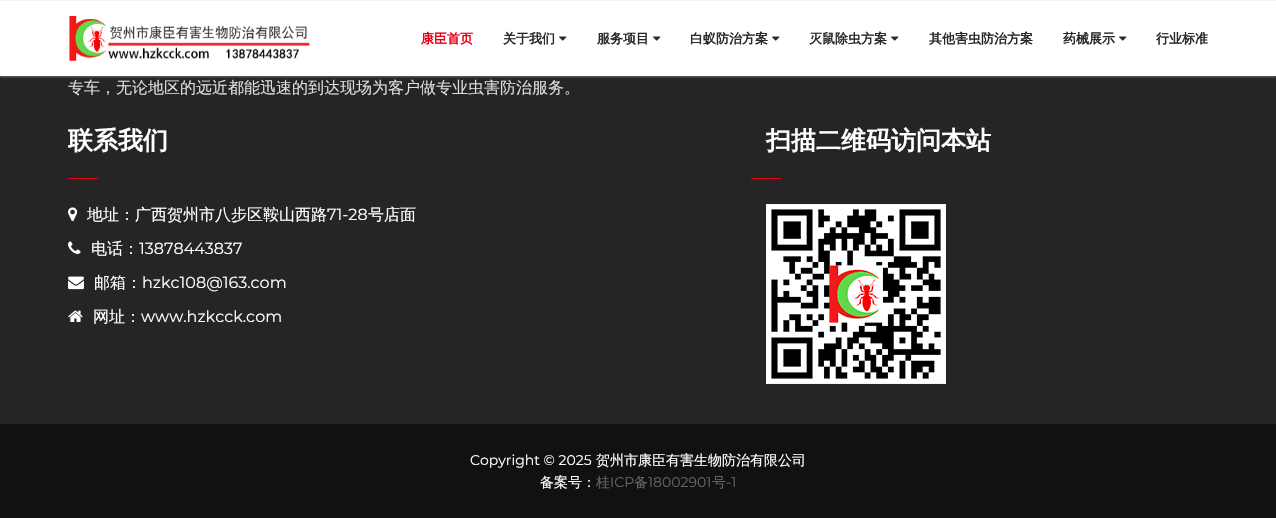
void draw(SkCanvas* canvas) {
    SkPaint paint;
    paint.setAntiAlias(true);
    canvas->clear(0xFF252525);
    paint.setColor(0xFFA1A1A1);
    paint.setMaskFilter(SkMaskFilter::MakeBlur(kNormal_SkBlurStyle, 1.5f));
    canvas->drawRect(SkRect::MakeXYWH(0, 0, 1276, 76), paint);
    paint.setMaskFilter(nullptr);
    paint.setColor(0xFFFFFFFF);
    canvas->drawRect(SkRect::MakeXYWH(0, 1, 1276, 75), paint);
    paint.setColor(0xFFF3F3F3);
    canvas->drawRect(SkRect::MakeXYWH(0, 0, 1276, 1), paint);
    canvas->drawImageRect(SkImages::DeferredFromEncodedData(SkData::MakeFromFileName("img1.png")), SkRect::MakeXYWH(69, 16, 241, 45), SkSamplingOptions());
    SkFont font1(fontMgr->matchFamilyStyle("WenQuanYi Zen Hei", SkFontStyle::Bold()), 13);
    font1.setSubpixel(true);
    paint.setColor(0xFFE60112);
    canvas->drawString("康臣首页", 421, 43, font1, paint);
    paint.setColor(0xFF282828);
    canvas->drawString("关于我们", 503, 43, font1, paint);
    canvas->drawImageRect(SkImages::DeferredFromEncodedData(SkData::MakeFromFileName("img2.png")), SkRect::MakeXYWH(559, 36, 8, 5), SkSamplingOptions());
    canvas->drawString("服务项目", 597, 43, font1, paint);
    canvas->drawImageRect(SkImages::DeferredFromEncodedData(SkData::MakeFromFileName("img2.png")), SkRect::MakeXYWH(653, 36, 8, 5), SkSamplingOptions());
    canvas->drawString("白蚁防治方案", 690, 43, font1, paint);
    canvas->drawImageRect(SkImages::DeferredFromEncodedData(SkData::MakeFromFileName("img2.png")), SkRect::MakeXYWH(772, 36, 8, 5), SkSamplingOptions());
    canvas->drawString("灭鼠除虫方案", 809, 43, font1, paint);
    canvas->drawImageRect(SkImages::DeferredFromEncodedData(SkData::MakeFromFileName("img2.png")), SkRect::MakeXYWH(891, 36, 8, 5), SkSamplingOptions());
    canvas->drawString("其他害虫防治方案", 929, 43, font1, paint);
    canvas->drawString("药械展示", 1063, 43, font1, paint);
    canvas->drawImageRect(SkImages::DeferredFromEncodedData(SkData::MakeFromFileName("img2.png")), SkRect::MakeXYWH(1119, 36, 8, 5), SkSamplingOptions());
    canvas->drawString("行业标准", 1156, 43, font1, paint);
    SkFont font2(fontMgr->matchFamilyStyle("WenQuanYi Zen Hei", SkFontStyle(500, SkFontStyle::kNormal_Width, SkFontStyle::kUpright_Slant)), 16);
    font2.setSubpixel(true);
    paint.setColor(0xFFDDDDDD);
    canvas->drawString("专车，无论地区的远近都能迅速的到达现场为客户做专业虫害防治服务。", 68, 93, font2, paint);
    SkFont font3(fontMgr->matchFamilyStyle("WenQuanYi Zen Hei", SkFontStyle::Bold()), 25);
    font3.setSubpixel(true);
    paint.setColor(0xFFFFFFFF);
    canvas->drawString("联系我们", 68, 149, font3, paint);
    paint.setColor(0xFFE60012);
    canvas->drawRect(SkRect::MakeXYWH(68, 178, 30, 1), paint);
    canvas->drawImageRect(SkImages::DeferredFromEncodedData(SkData::MakeFromFileName("img3.png")), SkRect::MakeXYWH(68, 207, 10, 15), SkSamplingOptions());
    paint.setColor(0xFFFFFFFF);
    canvas->drawString("地址：广西贺州市八步区鞍山西路", 87, 220, font2, paint);
    SkFont font4(fontMgr->matchFamilyStyle("Montserrat", SkFontStyle::Normal()), 16);
    font4.setSubpixel(true);
    canvas->drawString("71-28", 327, 220, font4, paint);
    canvas->drawString("号店面", 368, 220, font2, paint);
    canvas->drawImageRect(SkImages::DeferredFromEncodedData(SkData::MakeFromFileName("img4.png")), SkRect::MakeXYWH(68, 241, 13, 13), SkSamplingOptions());
    canvas->drawString("电话：", 91, 254, font2, paint);
    canvas->drawString("13878443837", 139, 254, font4, paint);
    canvas->drawImageRect(SkImages::DeferredFromEncodedData(SkData::MakeFromFileName("img5.png")), SkRect::MakeXYWH(68, 276, 16, 14), SkSamplingOptions());
    canvas->drawString("邮箱：", 94, 288, font2, paint);
    canvas->drawString("hzkc108@163.com", 142, 288, font4, paint);
    canvas->drawImageRect(SkImages::DeferredFromEncodedData(SkData::MakeFromFileName("img6.png")), SkRect::MakeXYWH(68, 310, 15, 12), SkSamplingOptions());
    canvas->drawString("网址：", 93, 322, font2, paint);
    canvas->drawString("www.hzkcck.com", 141, 322, font4, paint);
    canvas->drawString("扫描二维码访问本站", 766, 149, font3, paint);
    paint.setColor(0xFFE60012);
    canvas->drawRect(SkRect::MakeXYWH(751, 178, 30, 1), paint);
    canvas->drawImageRect(SkImages::DeferredFromEncodedData(SkData::MakeFromFileName("img7.png")), SkRect::MakeXYWH(766, 204, 180, 180), SkSamplingOptions());
    paint.setColor(0xFF111111);
    canvas->drawRect(SkRect::MakeXYWH(0, 424, 1276, 94), paint);
    SkFont font5(fontMgr->matchFamilyStyle("Montserrat", SkFontStyle::Normal()), 14);
    font5.setSubpixel(true);
    paint.setColor(0xFFFFFFFF);
    canvas->drawString("Copyright © 2025", 470, 465, font5, paint);
    SkFont font6(fontMgr->matchFamilyStyle("WenQuanYi Zen Hei", SkFontStyle(500, SkFontStyle::kNormal_Width, SkFontStyle::kUpright_Slant)), 14);
    font6.setSubpixel(true);
    canvas->drawString("贺州市康臣有害生物防治有限公司", 596, 465, font6, paint);
    canvas->drawString("备案号：", 540, 487, font6, paint);
    paint.setColor(0xFF666666);
    canvas->drawString("桂", 596, 487, font6, paint);
    canvas->drawString("ICP", 610, 487, font5, paint);
    canvas->drawString("备", 634, 487, font6, paint);
    canvas->drawString("18002901", 648, 487, font5, paint);
    canvas->drawString("号", 712, 487, font6, paint);
    canvas->drawString("-1", 726, 487, font5, paint);
}
